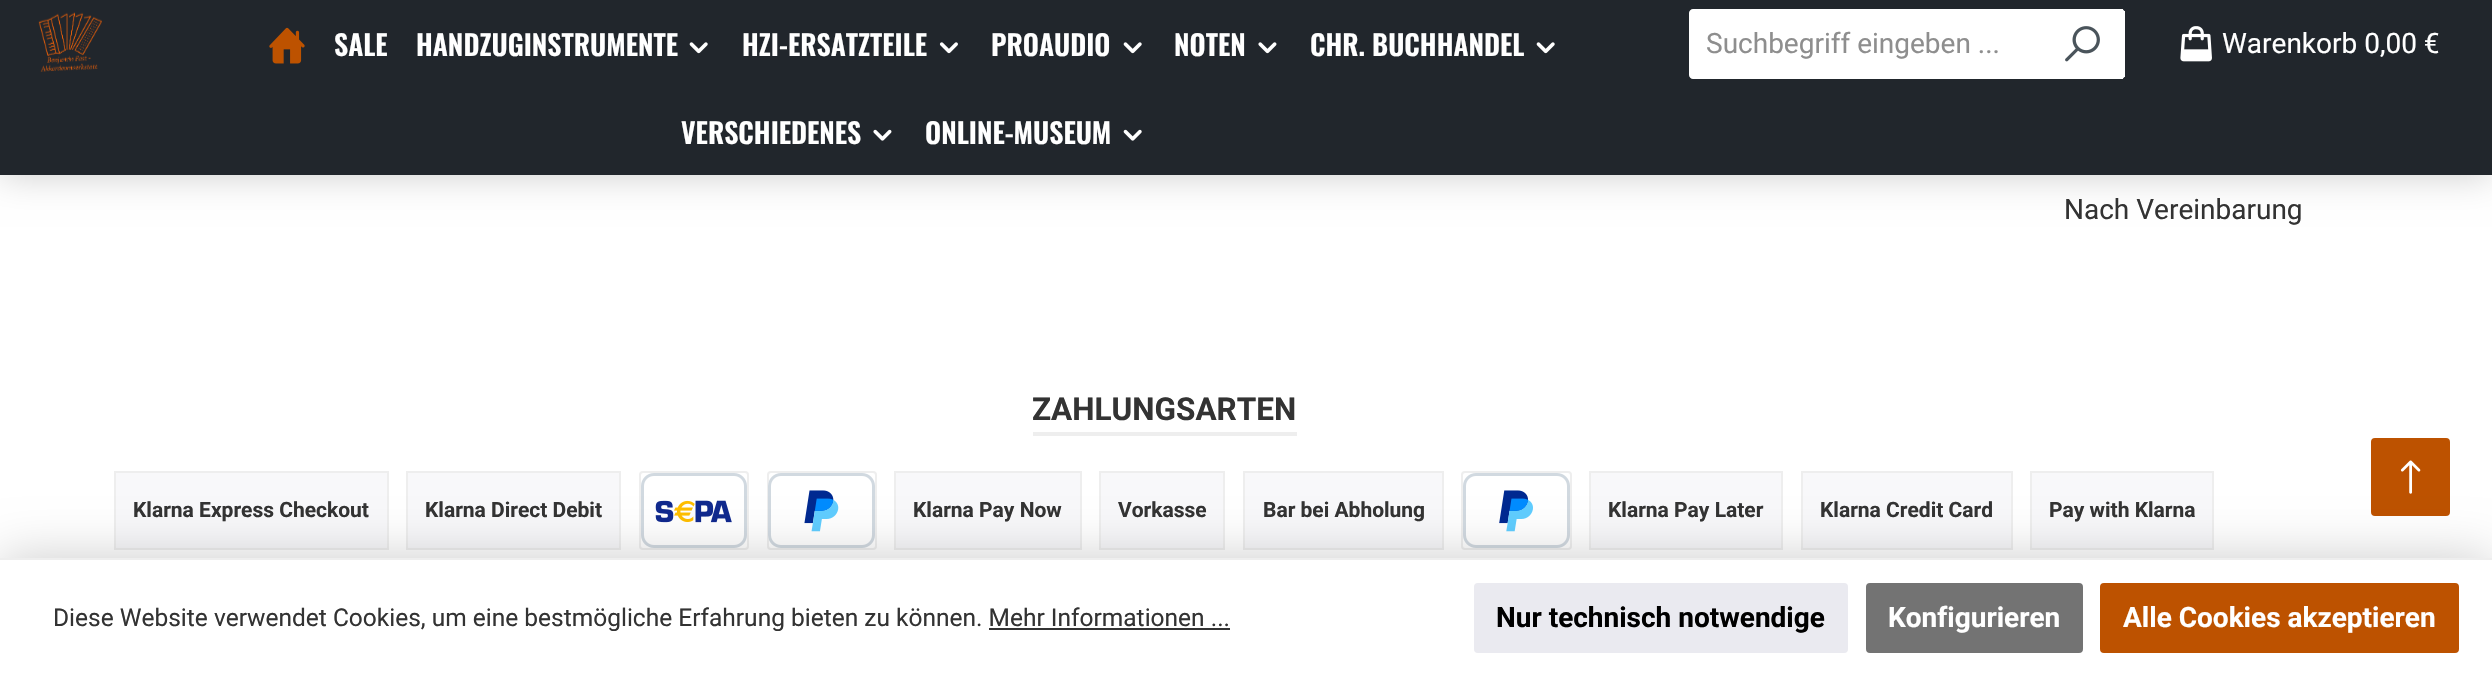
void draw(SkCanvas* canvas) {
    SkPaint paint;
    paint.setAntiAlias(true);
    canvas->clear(0xFFFFFFFF);
    paint.setColor(0x33000000);
    paint.setMaskFilter(SkMaskFilter::MakeBlur(kNormal_SkBlurStyle, 17.5f));
    canvas->drawRect(SkRect::MakeXYWH(0, 0, 2492, 175), paint);
    paint.setMaskFilter(nullptr);
    paint.setColor(0xFF21262C);
    canvas->drawRect(SkRect::MakeXYWH(0, 0, 2492, 175), paint);
    canvas->drawImageRect(SkImages::DeferredFromEncodedData(SkData::MakeFromFileName("img1.png")), SkRect::MakeXYWH(269, 27, 36, 37), SkSamplingOptions());
    SkFont font1(fontMgr->matchFamilyStyle("Oswald", SkFontStyle(600, SkFontStyle::kNormal_Width, SkFontStyle::kUpright_Slant)), 28);
    font1.setSubpixel(true);
    paint.setColor(0xFFFFFFFF);
    canvas->drawString("SALE", 334, 56, font1, paint);
    canvas->drawString("HANDZUGINSTRUMENTE", 416, 56, font1, paint);
    canvas->drawImageRect(SkImages::DeferredFromEncodedData(SkData::MakeFromFileName("img2.png")), SkRect::MakeXYWH(689, 42, 19, 12), SkSamplingOptions());
    canvas->drawString("HZI-ERSATZTEILE", 742, 56, font1, paint);
    canvas->drawImageRect(SkImages::DeferredFromEncodedData(SkData::MakeFromFileName("img3.png")), SkRect::MakeXYWH(939, 42, 19, 12), SkSamplingOptions());
    canvas->drawString("PROAUDIO", 991, 56, font1, paint);
    canvas->drawImageRect(SkImages::DeferredFromEncodedData(SkData::MakeFromFileName("img2.png")), SkRect::MakeXYWH(1123, 42, 19, 12), SkSamplingOptions());
    canvas->drawString("NOTEN", 1174, 56, font1, paint);
    canvas->drawImageRect(SkImages::DeferredFromEncodedData(SkData::MakeFromFileName("img4.png")), SkRect::MakeXYWH(1258, 42, 19, 12), SkSamplingOptions());
    canvas->drawString("CHR. BUCHHANDEL", 1310, 56, font1, paint);
    canvas->drawImageRect(SkImages::DeferredFromEncodedData(SkData::MakeFromFileName("img2.png")), SkRect::MakeXYWH(1536, 42, 19, 12), SkSamplingOptions());
    canvas->drawString("VERSCHIEDENES", 681, 144, font1, paint);
    canvas->drawImageRect(SkImages::DeferredFromEncodedData(SkData::MakeFromFileName("img5.png")), SkRect::MakeXYWH(873, 129, 19, 12), SkSamplingOptions());
    canvas->drawString("ONLINE-MUSEUM", 925, 144, font1, paint);
    canvas->drawImageRect(SkImages::DeferredFromEncodedData(SkData::MakeFromFileName("img6.png")), SkRect::MakeXYWH(1123, 129, 19, 12), SkSamplingOptions());
    canvas->drawImageRect(SkImages::DeferredFromEncodedData(SkData::MakeFromFileName("img7.png")), SkRect::MakeXYWH(38, 12, 64, 60), SkSamplingOptions());
    canvas->drawPath(SkPathBuilder().moveTo(1693, 10).lineTo(2043, 10).lineTo(2043, 78).lineTo(1693, 78).cubicTo(1691.5f, 78, 1690, 76.5f, 1690, 75).lineTo(1690, 13).cubicTo(1690, 11.5f, 1691.5f, 10, 1693, 10).close().detach(), paint);
    paint.setStyle(SkPaint::kStroke_Style);
    paint.setStrokeWidth(2);
    canvas->drawPath(SkPathBuilder().moveTo(1693, 10).lineTo(2043, 10).lineTo(2043, 78).lineTo(1693, 78).cubicTo(1691.5f, 78, 1690, 76.5f, 1690, 75).lineTo(1690, 13).cubicTo(1690, 11.5f, 1691.5f, 10, 1693, 10).close().detach(), paint);
    SkFont font2(fontMgr->matchFamilyStyle("Roboto", SkFontStyle::Normal()), 28);
    font2.setSubpixel(true);
    paint.setStyle(SkPaint::kFill_Style);
    paint.setColor(0xFF8E8E8E);
    canvas->drawString("Suchbegriff eingeben ...", 1706, 53, font2, paint);
    paint.setColor(0xFFFFFFFF);
    canvas->drawPath(SkPathBuilder().moveTo(2042, 9).lineTo(2121, 9).cubicTo(2123, 9, 2125, 11, 2125, 13).lineTo(2125, 75).cubicTo(2125, 77, 2123, 79, 2121, 79).lineTo(2042, 79).close().detach(), paint);
    canvas->drawRect(SkRect::MakeXYWH(2121, 9, 2, 1), paint);
    canvas->drawRect(SkRect::MakeXYWH(2124, 11, 1, 66), paint);
    canvas->drawRect(SkRect::MakeXYWH(2121, 78, 2, 1), paint);
    canvas->drawImageRect(SkImages::DeferredFromEncodedData(SkData::MakeFromFileName("img8.png")), SkRect::MakeXYWH(2065, 26, 35, 36), SkSamplingOptions());
    canvas->drawImageRect(SkImages::DeferredFromEncodedData(SkData::MakeFromFileName("img9.png")), SkRect::MakeXYWH(2180, 26, 32, 36), SkSamplingOptions());
    canvas->drawString("Warenkorb 0,00 €", 2222, 53, font2, paint);
    paint.setColor(0xFF333333);
    canvas->drawString("Nach Vereinbarung", 2064, 219, font2, paint);
    paint.setColor(0xFFEEEEEE);
    canvas->drawRect(SkRect::MakeXYWH(1033, 432, 264, 4), paint);
    SkFont font3(fontMgr->matchFamilyStyle("Roboto", SkFontStyle::Bold()), 31.5f);
    font3.setSubpixel(true);
    paint.setColor(0xFF333333);
    canvas->drawString("ZAHLUNGSARTEN", 1032, 420, font3, paint);
    paint.setColor(0xFFF8F8FA);
    canvas->drawRect(SkRect::MakeXYWH(115, 472, 273, 77), paint);
    paint.setStyle(SkPaint::kStroke_Style);
    paint.setColor(0xFFEEEEEE);
    canvas->drawRect(SkRect::MakeXYWH(115, 472, 273, 77), paint);
    SkFont font4(fontMgr->matchFamilyStyle("Roboto", SkFontStyle::Bold()), 21);
    font4.setSubpixel(true);
    paint.setStyle(SkPaint::kFill_Style);
    paint.setColor(0xFF333333);
    canvas->drawString("Klarna Express Checkout", 133, 517, font4, paint);
    paint.setColor(0xFFF8F8FA);
    canvas->drawRect(SkRect::MakeXYWH(407, 472, 213, 77), paint);
    paint.setStyle(SkPaint::kStroke_Style);
    paint.setColor(0xFFEEEEEE);
    canvas->drawRect(SkRect::MakeXYWH(407, 472, 213, 77), paint);
    paint.setStyle(SkPaint::kFill_Style);
    paint.setColor(0xFF333333);
    canvas->drawString("Klarna Direct Debit", 425, 517, font4, paint);
    paint.setStyle(SkPaint::kStroke_Style);
    paint.setColor(0xFFEEEEEE);
    canvas->drawRoundRect(SkRect::MakeXYWH(640, 472, 108, 77), 3, 3, paint);
    canvas->drawImageRect(SkImages::DeferredFromEncodedData(SkData::MakeFromFileName("img10.png")), SkRect::MakeXYWH(641, 473, 106, 75), SkSamplingOptions());
    canvas->drawRoundRect(SkRect::MakeXYWH(768, 472, 108, 77), 3, 3, paint);
    canvas->drawImageRect(SkImages::DeferredFromEncodedData(SkData::MakeFromFileName("img11.png")), SkRect::MakeXYWH(768, 473, 107, 75), SkSamplingOptions());
    paint.setStyle(SkPaint::kFill_Style);
    paint.setColor(0xFFF8F8FA);
    canvas->drawRect(SkRect::MakeXYWH(895, 472, 186, 77), paint);
    paint.setStyle(SkPaint::kStroke_Style);
    paint.setColor(0xFFEEEEEE);
    canvas->drawRect(SkRect::MakeXYWH(895, 472, 186, 77), paint);
    paint.setStyle(SkPaint::kFill_Style);
    paint.setColor(0xFF333333);
    canvas->drawString("Klarna Pay Now", 913, 517, font4, paint);
    paint.setColor(0xFFF8F8FA);
    canvas->drawRect(SkRect::MakeXYWH(1100, 472, 124, 77), paint);
    paint.setStyle(SkPaint::kStroke_Style);
    paint.setColor(0xFFEEEEEE);
    canvas->drawRect(SkRect::MakeXYWH(1100, 472, 124, 77), paint);
    paint.setStyle(SkPaint::kFill_Style);
    paint.setColor(0xFF333333);
    canvas->drawString("Vorkasse", 1118, 517, font4, paint);
    paint.setColor(0xFFF8F8FA);
    canvas->drawRect(SkRect::MakeXYWH(1244, 472, 199, 77), paint);
    paint.setStyle(SkPaint::kStroke_Style);
    paint.setColor(0xFFEEEEEE);
    canvas->drawRect(SkRect::MakeXYWH(1244, 472, 199, 77), paint);
    paint.setStyle(SkPaint::kFill_Style);
    paint.setColor(0xFF333333);
    canvas->drawString("Bar bei Abholung", 1263, 517, font4, paint);
    paint.setStyle(SkPaint::kStroke_Style);
    paint.setColor(0xFFEEEEEE);
    canvas->drawRoundRect(SkRect::MakeXYWH(1462, 472, 109, 77), 3, 3, paint);
    canvas->drawImageRect(SkImages::DeferredFromEncodedData(SkData::MakeFromFileName("img12.png")), SkRect::MakeXYWH(1463, 473, 107, 75), SkSamplingOptions());
    paint.setStyle(SkPaint::kFill_Style);
    paint.setColor(0xFFF8F8FA);
    canvas->drawRect(SkRect::MakeXYWH(1590, 472, 192, 77), paint);
    paint.setStyle(SkPaint::kStroke_Style);
    paint.setColor(0xFFEEEEEE);
    canvas->drawRect(SkRect::MakeXYWH(1590, 472, 192, 77), paint);
    paint.setStyle(SkPaint::kFill_Style);
    paint.setColor(0xFF333333);
    canvas->drawString("Klarna Pay Later", 1608, 517, font4, paint);
    paint.setColor(0xFFF8F8FA);
    canvas->drawRect(SkRect::MakeXYWH(1802, 472, 210, 77), paint);
    paint.setStyle(SkPaint::kStroke_Style);
    paint.setColor(0xFFEEEEEE);
    canvas->drawRect(SkRect::MakeXYWH(1802, 472, 210, 77), paint);
    paint.setStyle(SkPaint::kFill_Style);
    paint.setColor(0xFF333333);
    canvas->drawString("Klarna Credit Card", 1820, 517, font4, paint);
    paint.setColor(0xFFF8F8FA);
    canvas->drawRect(SkRect::MakeXYWH(2031, 472, 182, 77), paint);
    paint.setStyle(SkPaint::kStroke_Style);
    paint.setColor(0xFFEEEEEE);
    canvas->drawRect(SkRect::MakeXYWH(2031, 472, 182, 77), paint);
    paint.setStyle(SkPaint::kFill_Style);
    paint.setColor(0xFF333333);
    canvas->drawString("Pay with Klarna", 2049, 517, font4, paint);
    paint.setColor(0xFFBD5200);
    canvas->drawRoundRect(SkRect::MakeXYWH(2372, 439, 77, 76), 3, 3, paint);
    paint.setStyle(SkPaint::kStroke_Style);
    canvas->drawRoundRect(SkRect::MakeXYWH(2372, 439, 77, 76), 3, 3, paint);
    canvas->drawImageRect(SkImages::DeferredFromEncodedData(SkData::MakeFromFileName("img13.png")), SkRect::MakeXYWH(2400, 460, 21, 34), SkSamplingOptions());
    paint.setStyle(SkPaint::kFill_Style);
    paint.setColor(0x33000000);
    paint.setMaskFilter(SkMaskFilter::MakeBlur(kNormal_SkBlurStyle, 26));
    canvas->drawRect(SkRect::MakeXYWH(0, 558, 2492, 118), paint);
    paint.setMaskFilter(nullptr);
    paint.setColor(0xFFFFFFFF);
    canvas->drawRect(SkRect::MakeXYWH(0, 560, 2492, 115), paint);
    paint.setColor(0xFFEEEEEE);
    canvas->drawRect(SkRect::MakeXYWH(0, 558, 2492, 2), paint);
    SkFont font5(fontMgr->matchFamilyStyle("Roboto", SkFontStyle::Normal()), 24.5f);
    font5.setSubpixel(true);
    paint.setColor(0xFF333333);
    canvas->drawString("Diese Website verwendet Cookies, um eine bestmögliche Erfahrung bieten zu können. Mehr Informationen ...", 53, 626, font5, paint);
    canvas->drawRect(SkRect::MakeXYWH(989, 628, 241, 2), paint);
    paint.setColor(0xFFEAEAF0);
    canvas->drawRoundRect(SkRect::MakeXYWH(1475, 584, 372, 68), 3, 3, paint);
    paint.setStyle(SkPaint::kStroke_Style);
    canvas->drawRoundRect(SkRect::MakeXYWH(1475, 584, 372, 68), 3, 3, paint);
    SkFont font6(fontMgr->matchFamilyStyle("Roboto", SkFontStyle::Bold()), 28);
    font6.setSubpixel(true);
    paint.setStyle(SkPaint::kFill_Style);
    paint.setColor(0xFF000000);
    canvas->drawString("Nur technisch notwendige", 1496, 627, font6, paint);
    paint.setColor(0xFF737373);
    canvas->drawRoundRect(SkRect::MakeXYWH(1867, 584, 215, 68), 3, 3, paint);
    paint.setStyle(SkPaint::kStroke_Style);
    canvas->drawRoundRect(SkRect::MakeXYWH(1867, 584, 215, 68), 3, 3, paint);
    paint.setStyle(SkPaint::kFill_Style);
    paint.setColor(0xFFFFFFFF);
    canvas->drawString("Konfigurieren", 1888, 627, font6, paint);
    paint.setColor(0xFFBD5200);
    canvas->drawRoundRect(SkRect::MakeXYWH(2101, 584, 357, 68), 3, 3, paint);
    paint.setStyle(SkPaint::kStroke_Style);
    canvas->drawRoundRect(SkRect::MakeXYWH(2101, 584, 357, 68), 3, 3, paint);
    paint.setStyle(SkPaint::kFill_Style);
    paint.setColor(0xFFFFFFFF);
    canvas->drawString("Alle Cookies akzeptieren", 2123, 627, font6, paint);
}
